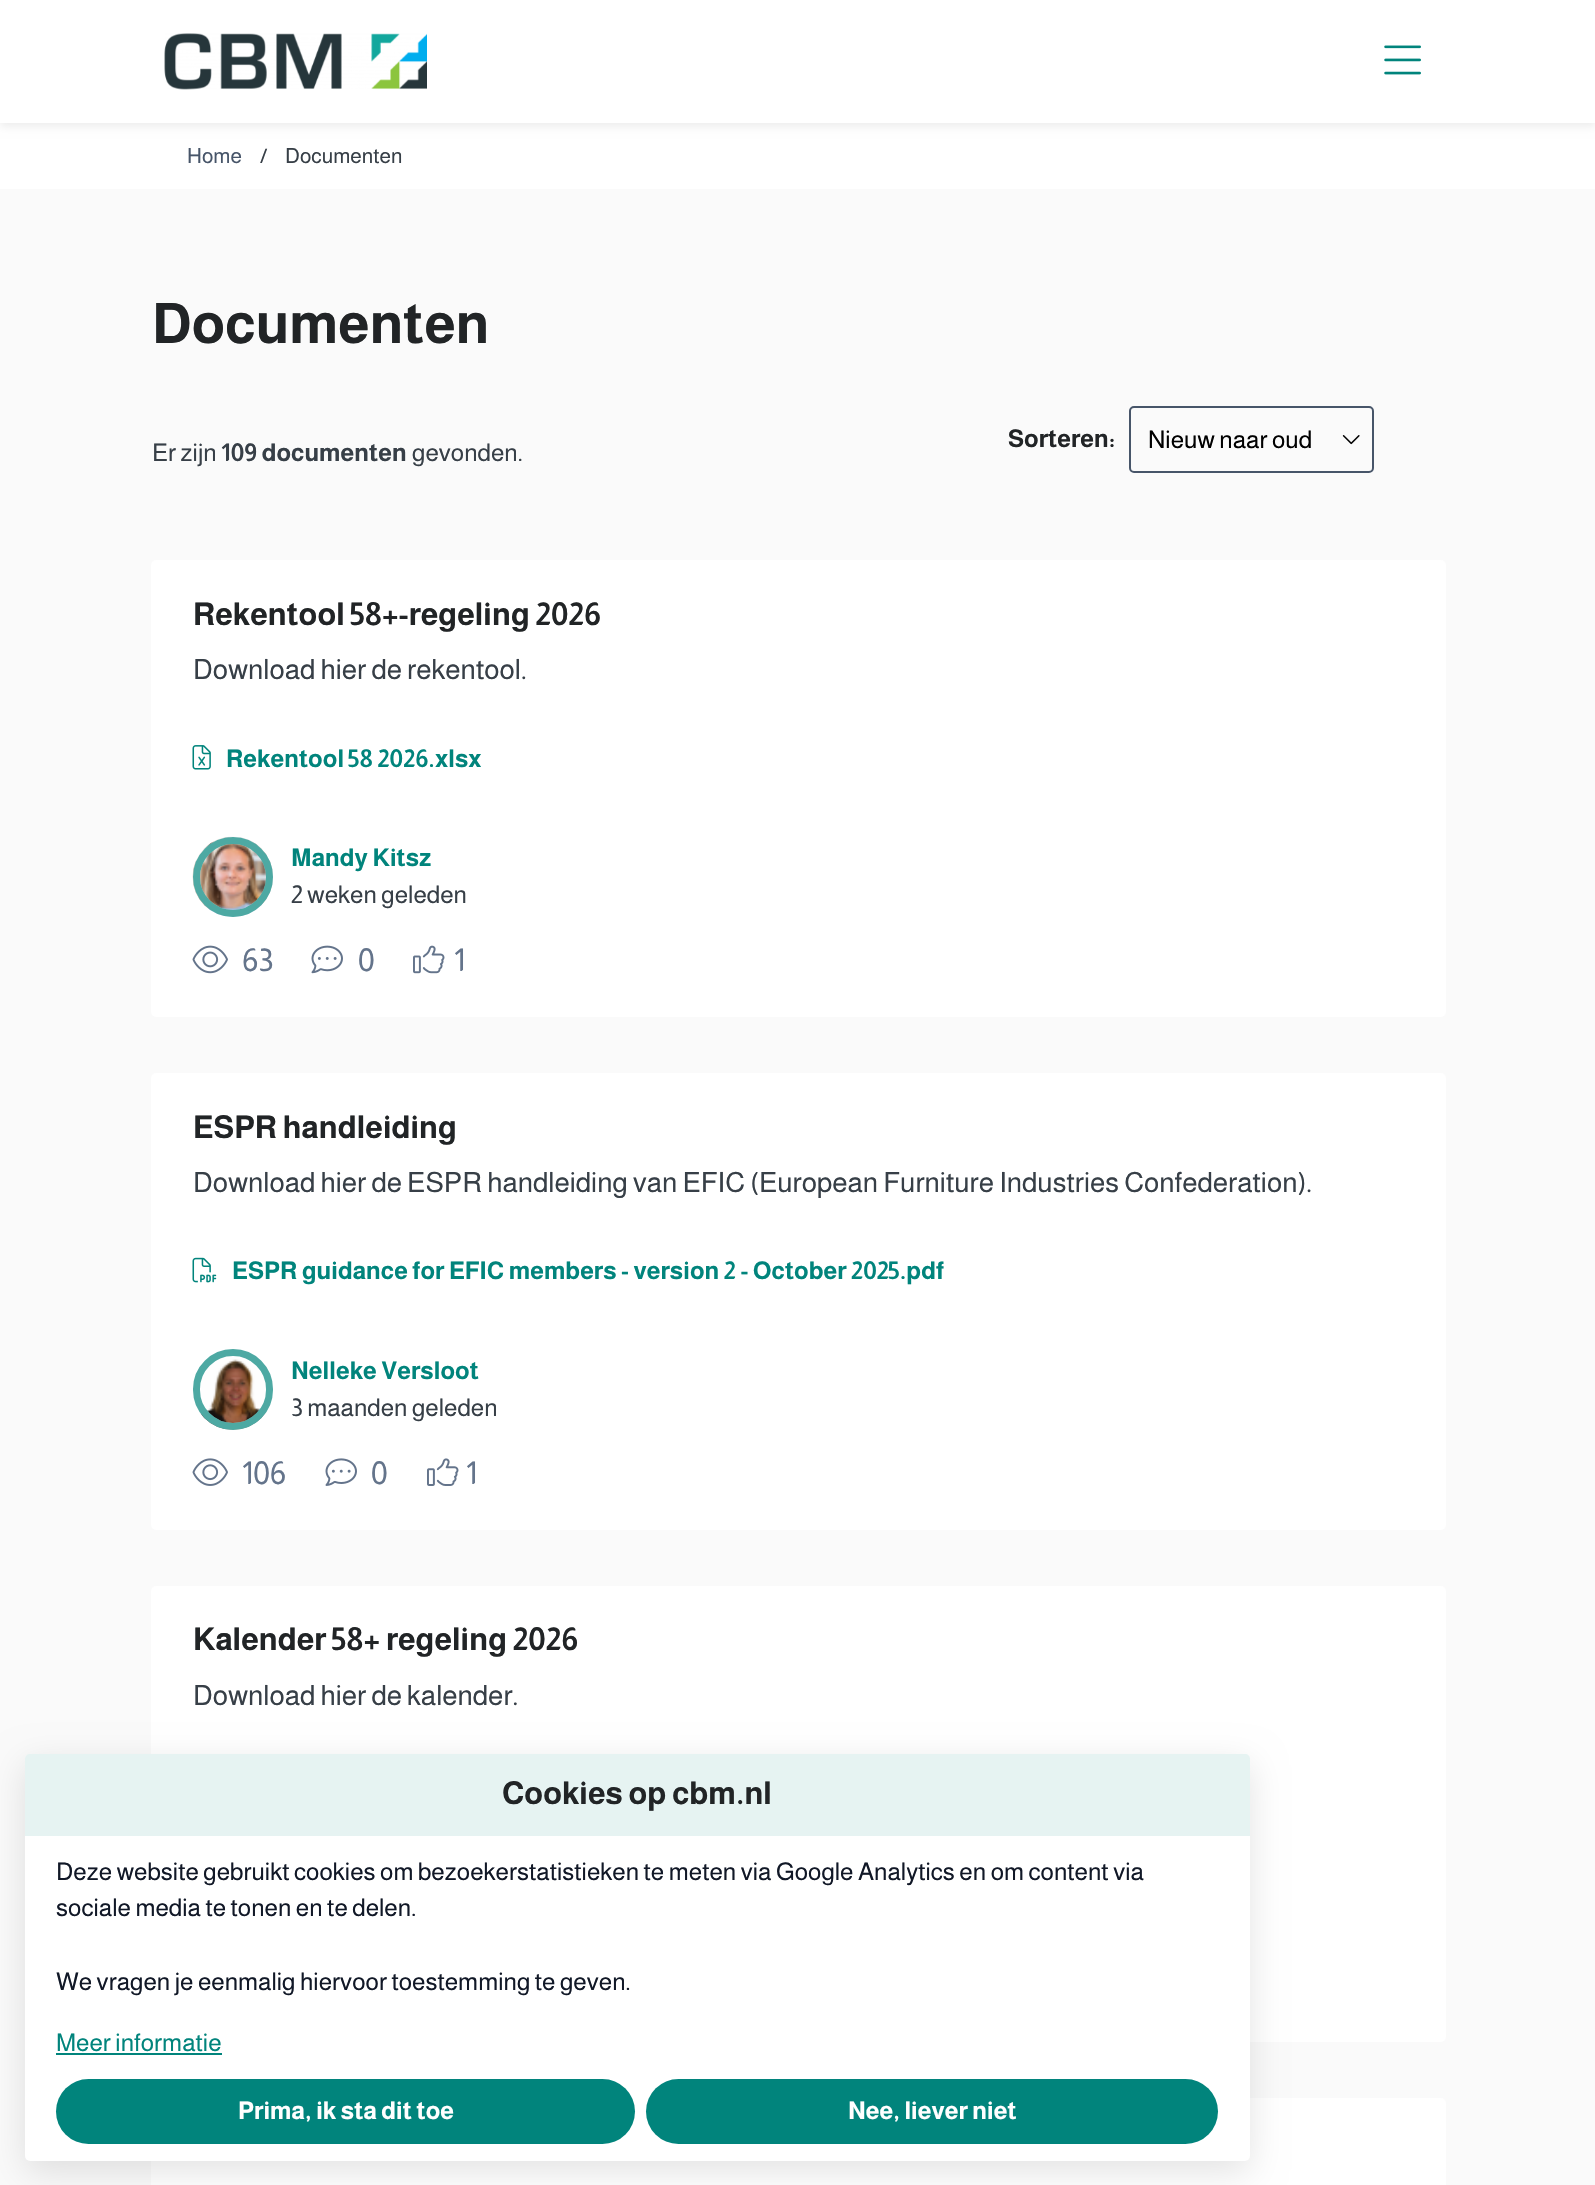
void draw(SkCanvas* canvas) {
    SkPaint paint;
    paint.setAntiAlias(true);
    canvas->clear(0xFFFAFAFA);
    paint.setColor(0xFFFFFFFF);
    canvas->drawRect(SkRect::MakeXYWH(0, 123, 1595, 66), paint);
    paint.setColor(0x14000000);
    paint.setMaskFilter(SkMaskFilter::MakeBlur(kNormal_SkBlurStyle, 4.5f));
    canvas->drawRect(SkRect::MakeXYWH(0, 4, 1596, 122), paint);
    paint.setMaskFilter(nullptr);
    paint.setColor(0xFFFFFFFF);
    canvas->drawRect(SkRect::MakeXYWH(0, 0, 1595, 123), paint);
    canvas->drawImageRect(SkImages::DeferredFromEncodedData(SkData::MakeFromFileName("img1.png")), SkRect::MakeXYWH(164, 33, 263, 57), SkSamplingOptions());
    canvas->drawImageRect(SkImages::DeferredFromEncodedData(SkData::MakeFromFileName("img2.png")), SkRect::MakeXYWH(1384, 45, 37, 30), SkSamplingOptions());
    SkFont font1(fontMgr->matchFamilyStyle("Almarai", SkFontStyle::Normal()), 21);
    font1.setSubpixel(true);
    paint.setColor(0xFF475569);
    canvas->drawString("Home", 187, 163, font1, paint);
    paint.setColor(0xFF373F47);
    canvas->drawString("/", 260, 163, font1, paint);
    canvas->drawString("Documenten", 285, 163, font1, paint);
    SkFont font2(fontMgr->matchFamilyStyle("Almarai", SkFontStyle::Bold()), 56);
    font2.setSubpixel(true);
    paint.setColor(0xFF212426);
    canvas->drawString("Documenten", 152, 343, font2, paint);
    SkFont font3(fontMgr->matchFamilyStyle("Almarai", SkFontStyle::Bold()), 24.5f);
    font3.setSubpixel(true);
    canvas->drawString("Sorteren:", 1008, 447, font3, paint);
    paint.setStyle(SkPaint::kStroke_Style);
    paint.setStrokeWidth(2);
    paint.setColor(0xFF475569);
    canvas->drawRoundRect(SkRect::MakeXYWH(1130, 407, 243, 65), 4, 4, paint);
    SkFont font4(fontMgr->matchFamilyStyle("Almarai", SkFontStyle::Normal()), 24.5f);
    font4.setSubpixel(true);
    paint.setStyle(SkPaint::kFill_Style);
    paint.setColor(0xFF000000);
    canvas->drawString("Nieuw naar oud", 1148, 448, font4, paint);
    canvas->drawImageRect(SkImages::DeferredFromEncodedData(SkData::MakeFromFileName("img3.png")), SkRect::MakeXYWH(1342, 435, 18, 10), SkSamplingOptions());
    paint.setColor(0xFF373F47);
    canvas->drawString("Er zijn", 152, 461, font4, paint);
    canvas->drawString("109 documenten", 221, 461, font3, paint);
    canvas->drawString("gevonden.", 412, 461, font4, paint);
    paint.setColor(0xFFFFFFFF);
    canvas->drawRoundRect(SkRect::MakeXYWH(151, 560, 1295, 457), 5, 5, paint);
    SkFont font5(fontMgr->matchFamilyStyle("Almarai", SkFontStyle::Bold()), 31.5f);
    font5.setSubpixel(true);
    paint.setColor(0xFF212426);
    canvas->drawString("Rekentool 58+-regeling 2026", 193, 625, font5, paint);
    SkFont font6(fontMgr->matchFamilyStyle("Almarai", SkFontStyle::Normal()), 28);
    font6.setSubpixel(true);
    paint.setColor(0xFF373F47);
    canvas->drawString("Download hier de rekentool.", 193, 679, font6, paint);
    canvas->drawImageRect(SkImages::DeferredFromEncodedData(SkData::MakeFromFileName("img4.png")), SkRect::MakeXYWH(192, 745, 19, 25), SkSamplingOptions());
    paint.setColor(0xFF01847C);
    canvas->drawString("Rekentool 58 2026.xlsx", 226, 767, font3, paint);
    canvas->drawImageRect(SkImages::DeferredFromEncodedData(SkData::MakeFromFileName("img5.png")), SkRect::MakeXYWH(192, 836, 81, 81), SkSamplingOptions());
    paint.setStyle(SkPaint::kStroke_Style);
    paint.setStrokeWidth(7);
    paint.setColor(0x66FFFFFF);
    canvas->drawCircle(233, 877, 36.5f, paint);
    paint.setColor(0xFF4DA9A3);
    canvas->drawCircle(233, 877, 36.5f, paint);
    paint.setStyle(SkPaint::kFill_Style);
    paint.setColor(0xFF01847C);
    canvas->drawString("Mandy Kitsz", 291, 866, font3, paint);
    paint.setColor(0xFF373F47);
    canvas->drawString("2 weken geleden", 291, 903, font4, paint);
    canvas->drawImageRect(SkImages::DeferredFromEncodedData(SkData::MakeFromFileName("img6.png")), SkRect::MakeXYWH(192, 945, 36, 29), SkSamplingOptions());
    SkFont font7(fontMgr->matchFamilyStyle("Almarai", SkFontStyle::Normal()), 31.5f);
    font7.setSubpixel(true);
    paint.setColor(0xFF64748B);
    canvas->drawString("63", 242, 971, font7, paint);
    canvas->drawImageRect(SkImages::DeferredFromEncodedData(SkData::MakeFromFileName("img7.png")), SkRect::MakeXYWH(311, 945, 32, 29), SkSamplingOptions());
    canvas->drawString("0", 358, 971, font7, paint);
    canvas->drawImageRect(SkImages::DeferredFromEncodedData(SkData::MakeFromFileName("img8.png")), SkRect::MakeXYWH(413, 945, 32, 29), SkSamplingOptions());
    canvas->drawString("1", 454, 971, font7, paint);
    paint.setColor(0xFFFFFFFF);
    canvas->drawRoundRect(SkRect::MakeXYWH(151, 1073, 1295, 457), 5, 5, paint);
    paint.setColor(0xFF212426);
    canvas->drawString("ESPR handleiding", 193, 1138, font5, paint);
    paint.setColor(0xFF373F47);
    canvas->drawString("Download hier de ESPR handleiding van EFIC (European Furniture Industries Confederation).", 193, 1192, font6, paint);
    canvas->drawImageRect(SkImages::DeferredFromEncodedData(SkData::MakeFromFileName("img9.png")), SkRect::MakeXYWH(192, 1257, 25, 26), SkSamplingOptions());
    paint.setColor(0xFF01847C);
    canvas->drawString("ESPR guidance for EFIC members - version 2 - October 2025.pdf", 232, 1279, font3, paint);
    canvas->drawImageRect(SkImages::DeferredFromEncodedData(SkData::MakeFromFileName("img10.png")), SkRect::MakeXYWH(193, 1349, 80, 81), SkSamplingOptions());
    paint.setStyle(SkPaint::kStroke_Style);
    paint.setColor(0x66FFFFFF);
    canvas->drawRoundRect(SkRect::MakeXYWH(196.5f, 1352.5f, 73, 74), 36.5f, 36.5f, paint);
    paint.setColor(0xFF4DA9A3);
    canvas->drawRoundRect(SkRect::MakeXYWH(196.5f, 1352.5f, 73, 74), 36.5f, 36.5f, paint);
    paint.setStyle(SkPaint::kFill_Style);
    paint.setColor(0xFF01847C);
    canvas->drawString("Nelleke Versloot", 291, 1379, font3, paint);
    paint.setColor(0xFF373F47);
    canvas->drawString("3 maanden geleden", 291, 1416, font4, paint);
    canvas->drawImageRect(SkImages::DeferredFromEncodedData(SkData::MakeFromFileName("img11.png")), SkRect::MakeXYWH(192, 1458, 36, 28), SkSamplingOptions());
    paint.setColor(0xFF64748B);
    canvas->drawString("106", 242, 1484, font7, paint);
    canvas->drawImageRect(SkImages::DeferredFromEncodedData(SkData::MakeFromFileName("img12.png")), SkRect::MakeXYWH(325, 1458, 32, 28), SkSamplingOptions());
    canvas->drawString("0", 371, 1484, font7, paint);
    canvas->drawImageRect(SkImages::DeferredFromEncodedData(SkData::MakeFromFileName("img13.png")), SkRect::MakeXYWH(427, 1458, 32, 28), SkSamplingOptions());
    canvas->drawString("1", 466, 1484, font7, paint);
    paint.setColor(0xFFFFFFFF);
    canvas->drawRoundRect(SkRect::MakeXYWH(151, 1586, 1295, 456), 5, 5, paint);
    paint.setColor(0xFF212426);
    canvas->drawString("Kalender 58+ regeling 2026", 193, 1650, font5, paint);
    paint.setColor(0xFF373F47);
    canvas->drawString("Download hier de kalender.", 193, 1705, font6, paint);
    paint.setColor(0xFFFFFFFF);
    canvas->drawRoundRect(SkRect::MakeXYWH(151, 2098, 1295, 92), 5, 5, paint);
    paint.setColor(0x1C000000);
    paint.setMaskFilter(SkMaskFilter::MakeBlur(kNormal_SkBlurStyle, 17.5f));
    canvas->drawRoundRect(SkRect::MakeXYWH(25, 1764, 1225, 408), 5, 5, paint);
    paint.setMaskFilter(nullptr);
    paint.setColor(0xFFFFFFFF);
    canvas->drawRoundRect(SkRect::MakeXYWH(25, 1754, 1225, 407), 5, 5, paint);
    paint.setColor(0xFFE6F3F2);
    canvas->drawPath(SkPathBuilder().moveTo(30, 1754).lineTo(1245, 1754).cubicTo(1248, 1754, 1250, 1756, 1250, 1759).lineTo(1250, 1836).lineTo(25, 1836).lineTo(25, 1759).cubicTo(25, 1756, 27, 1754, 30, 1754).close().detach(), paint);
    paint.setColor(0xFF212426);
    canvas->drawString("Cookies op cbm.nl", 502, 1804, font5, paint);
    paint.setColor(0xFF111827);
    canvas->drawString("Deze website gebruikt cookies om bezoekerstatistieken te meten via Google Analytics en om content via", 56, 1880, font4, paint);
    canvas->drawString("sociale media te tonen en te delen.", 56, 1916, font4, paint);
    canvas->drawString("We vragen je eenmalig hiervoor toestemming te geven.", 56, 1990, font4, paint);
    paint.setColor(0xFF01847C);
    canvas->drawString("Meer informatie", 56, 2051, font4, paint);
    canvas->drawRect(SkRect::MakeXYWH(56, 2053, 166, 2), paint);
    canvas->drawRoundRect(SkRect::MakeXYWH(56, 2079, 579, 65), 32.5f, 32.5f, paint);
    paint.setColor(0xFFFFFFFF);
    canvas->drawString("Prima, ik sta dit toe", 238, 2119, font3, paint);
    paint.setColor(0xFF01847C);
    canvas->drawRoundRect(SkRect::MakeXYWH(646, 2079, 572, 65), 32.5f, 32.5f, paint);
    paint.setColor(0xFFFFFFFF);
    canvas->drawString("Nee, liever niet", 848, 2119, font3, paint);
}
